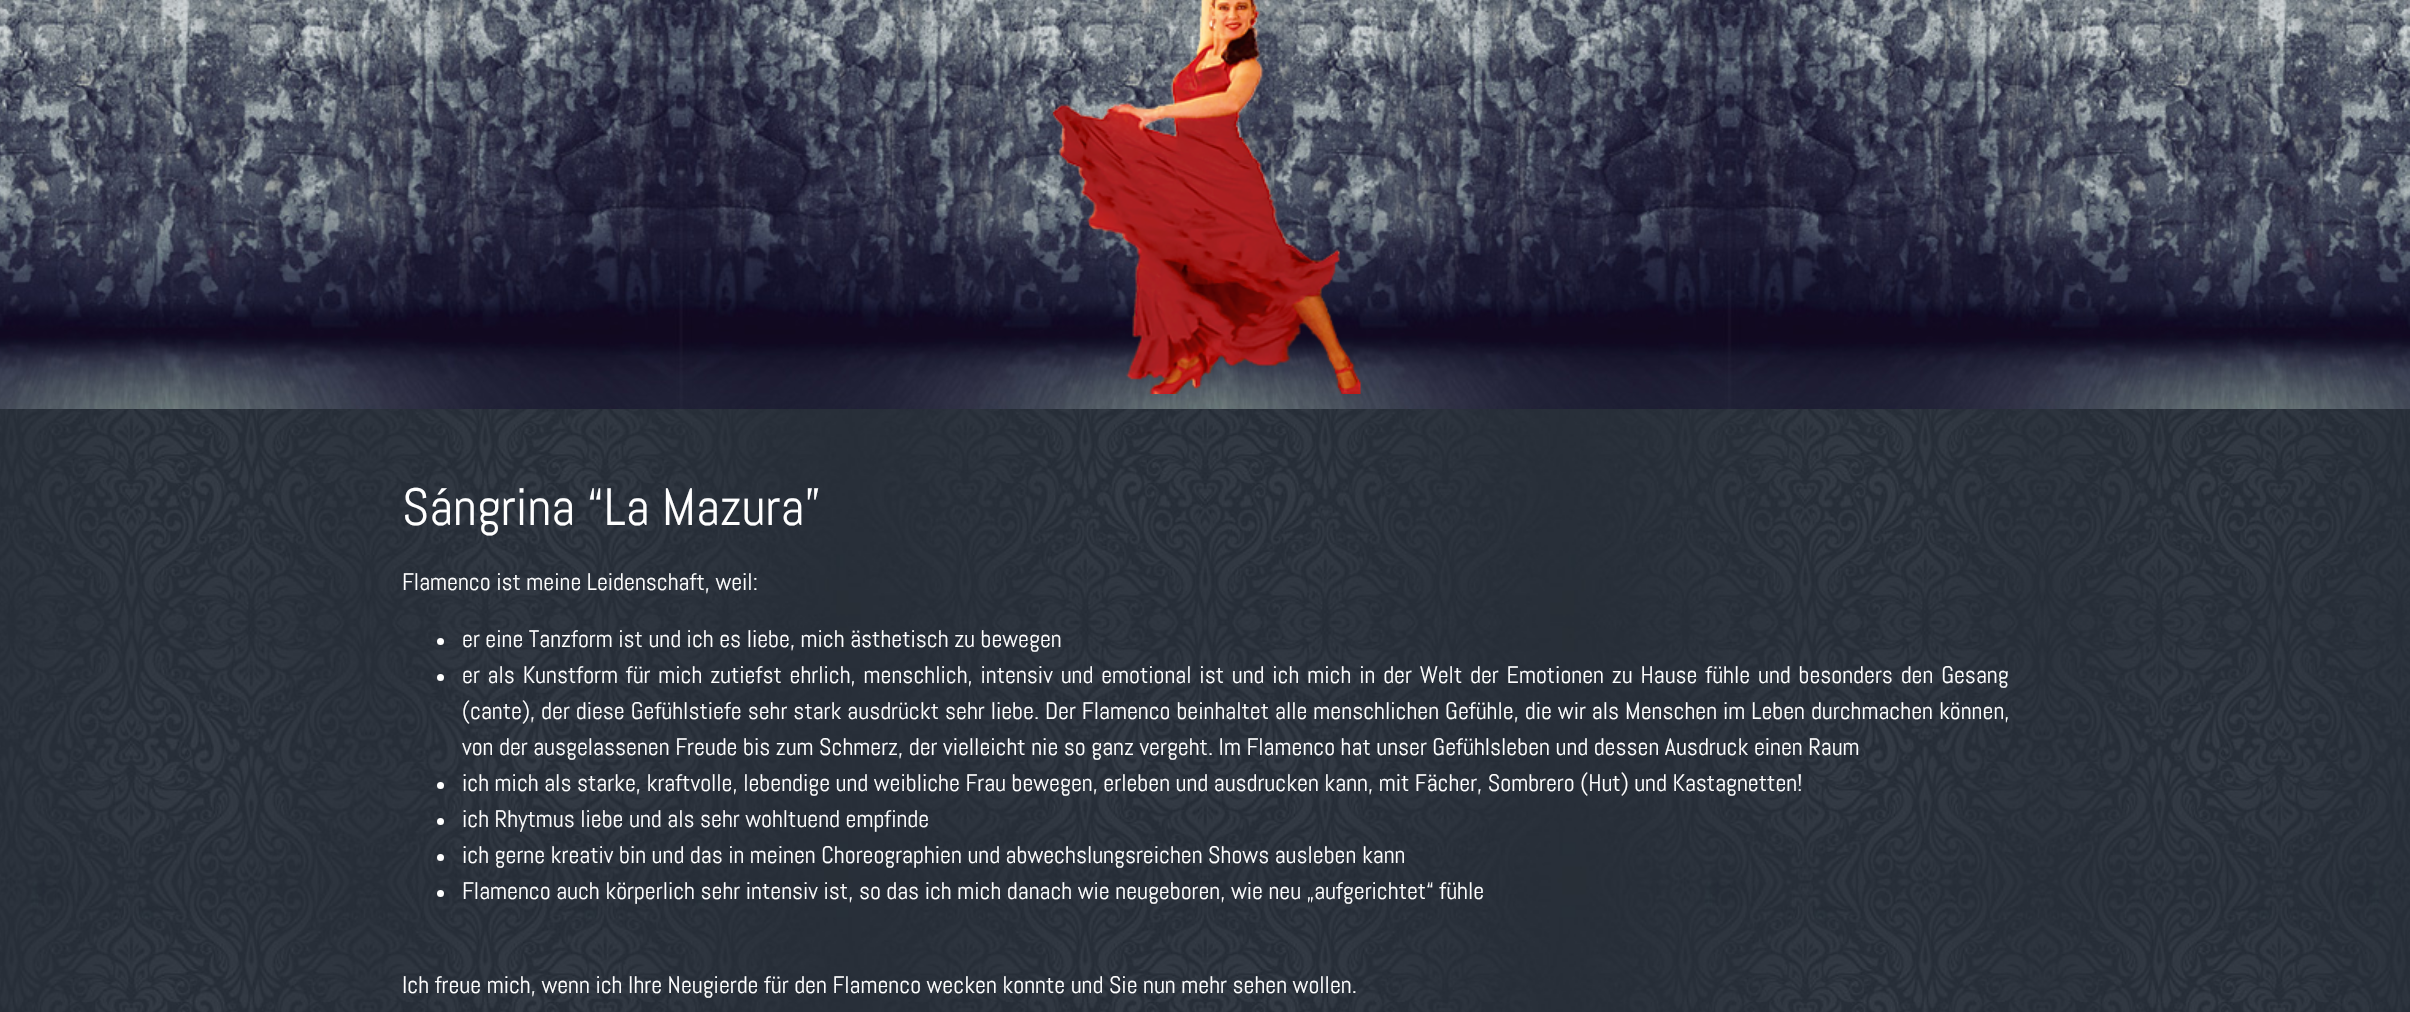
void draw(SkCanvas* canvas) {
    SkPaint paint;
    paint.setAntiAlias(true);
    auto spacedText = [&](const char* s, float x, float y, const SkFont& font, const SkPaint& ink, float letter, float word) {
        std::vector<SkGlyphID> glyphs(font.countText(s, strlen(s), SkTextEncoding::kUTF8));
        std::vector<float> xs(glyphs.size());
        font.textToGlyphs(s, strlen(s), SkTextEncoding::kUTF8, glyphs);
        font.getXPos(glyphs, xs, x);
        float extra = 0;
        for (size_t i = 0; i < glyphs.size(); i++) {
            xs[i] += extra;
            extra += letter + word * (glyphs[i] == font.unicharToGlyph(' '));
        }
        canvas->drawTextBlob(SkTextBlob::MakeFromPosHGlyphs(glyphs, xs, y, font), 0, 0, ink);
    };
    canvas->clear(0xFFFFFFFF);
    canvas->drawImageRect(SkImages::DeferredFromEncodedData(SkData::MakeFromFileName("img1.png")), SkRect::MakeXYWH(0, 409, 2410, 603), SkSamplingOptions());
    canvas->drawImageRect(SkImages::DeferredFromEncodedData(SkData::MakeFromFileName("img2.png")), SkRect::MakeXYWH(0, 0, 2410, 409), SkSamplingOptions());
    canvas->drawImageRect(SkImages::DeferredFromEncodedData(SkData::MakeFromFileName("img3.png")), SkRect::MakeXYWH(1052, 0, 309, 394), SkSamplingOptions());
    SkFont font1(fontMgr->matchFamilyStyle("Abel", SkFontStyle::Normal()), 52.5f);
    font1.setSubpixel(true);
    paint.setColor(0xFFFFFFFF);
    canvas->drawString("Sángrina “La Mazura”", 402, 525, font1, paint);
    SkFont font2(fontMgr->matchFamilyStyle("Abel", SkFontStyle::Normal()), 24);
    font2.setSubpixel(true);
    canvas->drawString("Flamenco ist meine Leidenschaft, weil:", 402, 590, font2, paint);
    canvas->drawCircle(440.5f, 641.5f, 3.5f, paint);
    canvas->drawString("er eine Tanzform ist und ich es liebe, mich ästhetisch zu bewegen", 462, 647, font2, paint);
    canvas->drawCircle(440.5f, 677.5f, 3.5f, paint);
    spacedText("er als Kunstform für mich zutiefst ehrlich, menschlich, intensiv und emotional ist und ich mich in der Welt der Emotionen zu Hause fühle und besonders den Gesang", 462, 683, font2, paint, 0, 2.3f);
    spacedText("(cante), der diese Gefühlstiefe sehr stark ausdrückt sehr liebe. Der Flamenco beinhaltet alle menschlichen Gefühle, die wir als Menschen im Leben durchmachen können,", 462, 719, font2, paint, 0, 0.45f);
    canvas->drawString("von der ausgelassenen Freude bis zum Schmerz, der vielleicht nie so ganz vergeht. Im Flamenco hat unser Gefühlsleben und dessen Ausdruck einen Raum", 462, 755, font2, paint);
    canvas->drawCircle(440.5f, 785.5f, 3.5f, paint);
    canvas->drawString("ich mich als starke, kraftvolle, lebendige und weibliche Frau bewegen, erleben und ausdrucken kann, mit Fächer, Sombrero (Hut) und Kastagnetten!", 462, 791, font2, paint);
    canvas->drawCircle(440.5f, 821.5f, 3.5f, paint);
    canvas->drawString("ich Rhytmus liebe und als sehr wohltuend empfinde", 462, 827, font2, paint);
    canvas->drawCircle(440.5f, 857.5f, 3.5f, paint);
    canvas->drawString("ich gerne kreativ bin und das in meinen Choreographien und abwechslungsreichen Shows ausleben kann", 462, 863, font2, paint);
    canvas->drawCircle(440.5f, 893.5f, 3.5f, paint);
    canvas->drawString("Flamenco auch körperlich sehr intensiv ist, so das ich mich danach wie neugeboren, wie neu „aufgerichtet“ fühle", 462, 899, font2, paint);
    canvas->drawString("Ich freue mich, wenn ich Ihre Neugierde für den Flamenco wecken konnte und Sie nun mehr sehen wollen.", 402, 993, font2, paint);
}
